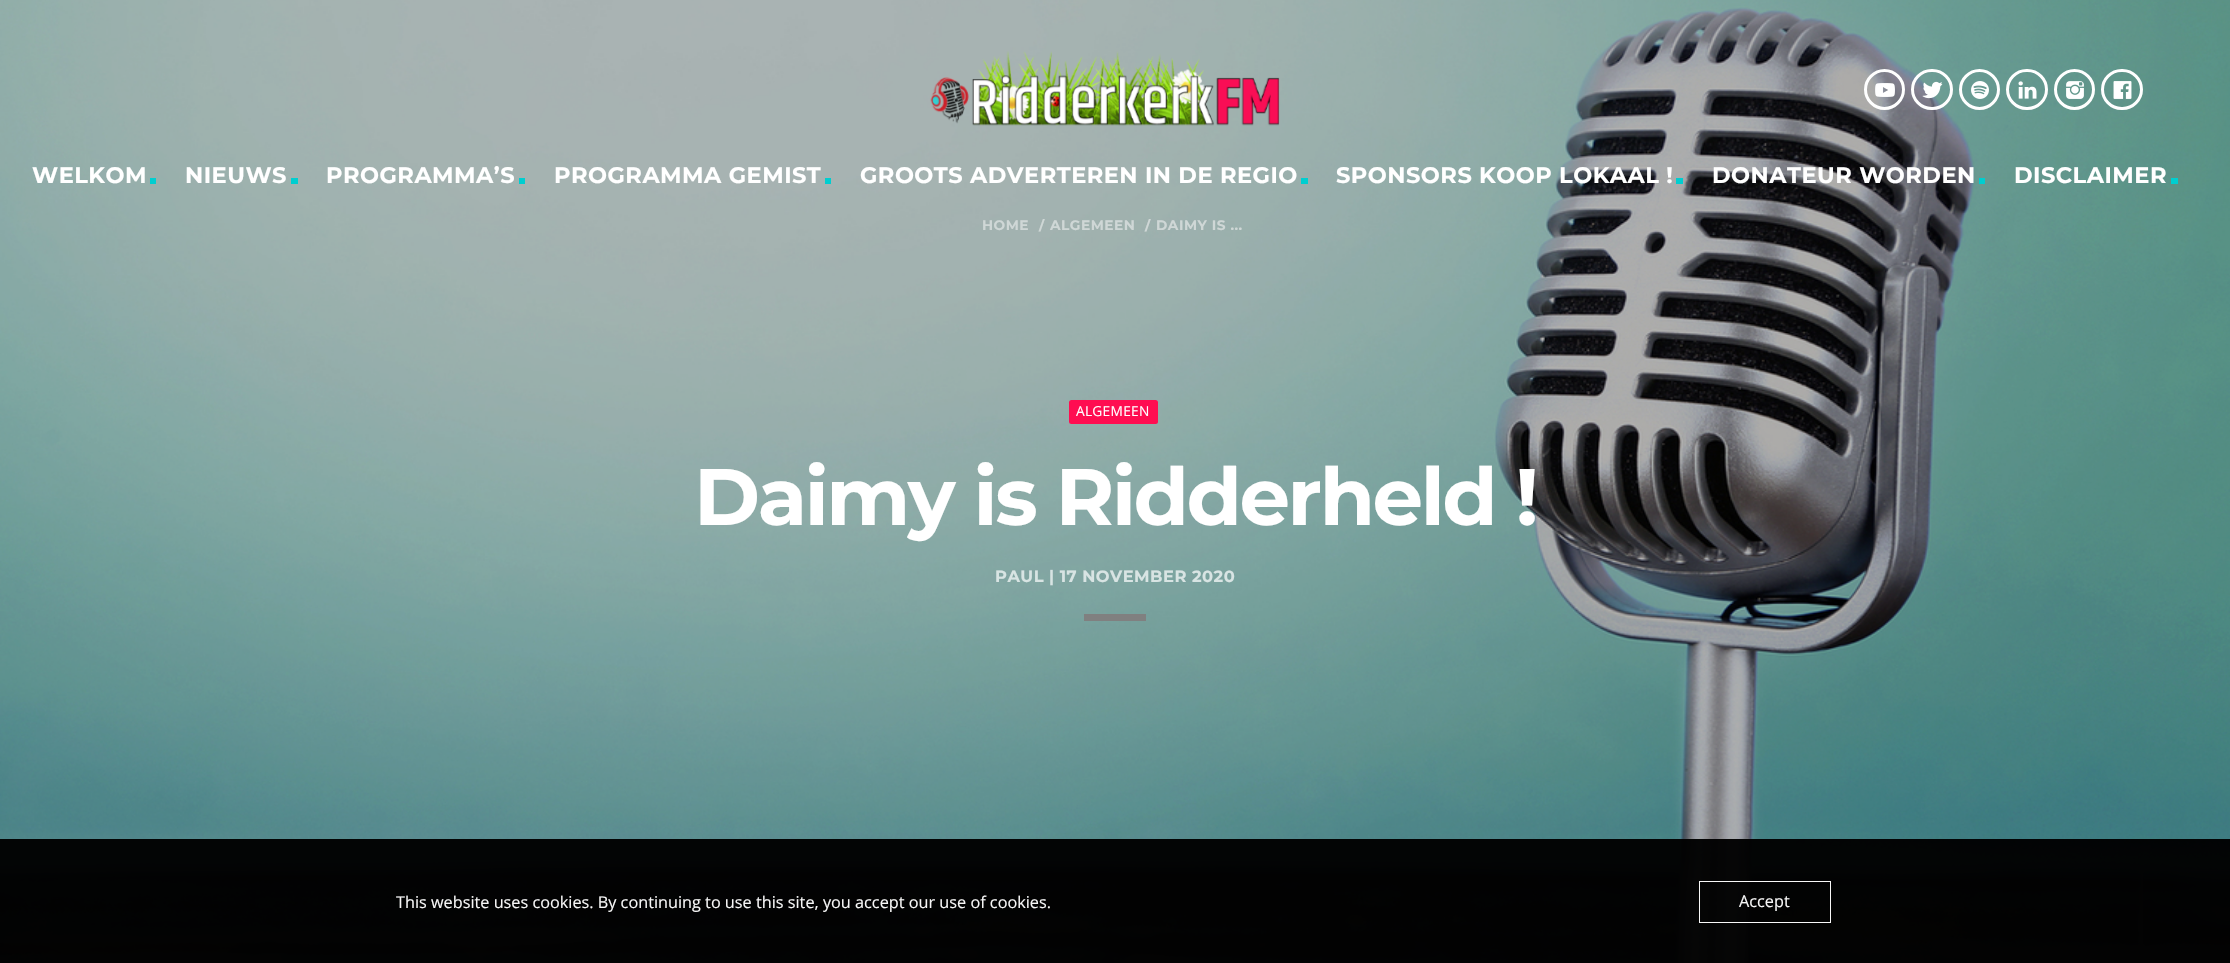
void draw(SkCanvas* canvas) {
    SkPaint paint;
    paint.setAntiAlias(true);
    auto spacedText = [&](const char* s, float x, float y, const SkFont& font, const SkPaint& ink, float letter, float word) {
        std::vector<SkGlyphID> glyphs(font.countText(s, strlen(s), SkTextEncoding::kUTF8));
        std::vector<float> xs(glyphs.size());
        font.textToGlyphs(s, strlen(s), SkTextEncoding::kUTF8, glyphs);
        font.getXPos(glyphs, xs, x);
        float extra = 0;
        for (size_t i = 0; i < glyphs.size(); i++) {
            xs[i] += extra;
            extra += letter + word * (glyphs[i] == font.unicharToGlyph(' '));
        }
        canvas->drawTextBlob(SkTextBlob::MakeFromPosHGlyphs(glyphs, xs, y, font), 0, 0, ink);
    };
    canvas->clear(0xFFFFFFFF);
    canvas->drawImageRect(SkImages::DeferredFromEncodedData(SkData::MakeFromFileName("img8.png")), SkRect::MakeXYWH(0, 0, 2230, 963), SkSamplingOptions());
    canvas->drawImageRect(SkImages::DeferredFromEncodedData(SkData::MakeFromFileName("img1.png")), SkRect::MakeXYWH(930, 51, 350, 75), SkSamplingOptions());
    paint.setStyle(SkPaint::kStroke_Style);
    paint.setStrokeWidth(3);
    paint.setColor(0xFFFFFFFF);
    canvas->drawCircle(1884.5f, 89.5f, 19, paint);
    canvas->drawImageRect(SkImages::DeferredFromEncodedData(SkData::MakeFromFileName("img2.png")), SkRect::MakeXYWH(1875, 83, 20, 14), SkSamplingOptions());
    canvas->drawRoundRect(SkRect::MakeXYWH(1912.5f, 70.5f, 39, 38), 19, 19, paint);
    canvas->drawImageRect(SkImages::DeferredFromEncodedData(SkData::MakeFromFileName("img3.png")), SkRect::MakeXYWH(1922, 81, 21, 18), SkSamplingOptions());
    canvas->drawCircle(1979.5f, 89.5f, 19, paint);
    canvas->drawImageRect(SkImages::DeferredFromEncodedData(SkData::MakeFromFileName("img4.png")), SkRect::MakeXYWH(1971, 81, 18, 18), SkSamplingOptions());
    canvas->drawRoundRect(SkRect::MakeXYWH(2007.5f, 70.5f, 39, 38), 19, 19, paint);
    canvas->drawImageRect(SkImages::DeferredFromEncodedData(SkData::MakeFromFileName("img5.png")), SkRect::MakeXYWH(2018, 81, 19, 18), SkSamplingOptions());
    canvas->drawCircle(2074.5f, 89.5f, 19, paint);
    canvas->drawImageRect(SkImages::DeferredFromEncodedData(SkData::MakeFromFileName("img6.png")), SkRect::MakeXYWH(2066, 81, 18, 18), SkSamplingOptions());
    canvas->drawRoundRect(SkRect::MakeXYWH(2102.5f, 70.5f, 39, 38), 19, 19, paint);
    canvas->drawImageRect(SkImages::DeferredFromEncodedData(SkData::MakeFromFileName("img7.png")), SkRect::MakeXYWH(2113, 81, 19, 18), SkSamplingOptions());
    SkFont font1(fontMgr->matchFamilyStyle("Montserrat", SkFontStyle::Bold()), 22.5f);
    font1.setSubpixel(true);
    paint.setStyle(SkPaint::kFill_Style);
    spacedText("WELKOM", 32, 183, font1, paint, 0.5f, 0);
    paint.setColor(0xFF00CED0);
    canvas->drawRect(SkRect::MakeXYWH(150, 178, 6, 6), paint);
    paint.setColor(0xFFFFFFFF);
    spacedText("NIEUWS", 185, 183, font1, paint, 0.5f, 0);
    paint.setColor(0xFF00CED0);
    canvas->drawRect(SkRect::MakeXYWH(291, 178, 7, 6), paint);
    paint.setColor(0xFFFFFFFF);
    spacedText("PROGRAMMA’S", 326, 183, font1, paint, 0.5f, 0);
    paint.setColor(0xFF00CED0);
    canvas->drawRect(SkRect::MakeXYWH(519, 178, 6, 6), paint);
    paint.setColor(0xFFFFFFFF);
    spacedText("PROGRAMMA GEMIST", 554, 183, font1, paint, 0.5f, 0);
    paint.setColor(0xFF00CED0);
    canvas->drawRect(SkRect::MakeXYWH(825, 178, 6, 6), paint);
    paint.setColor(0xFFFFFFFF);
    spacedText("GROOTS ADVERTEREN IN DE REGIO", 860, 183, font1, paint, 0.5f, 0);
    paint.setColor(0xFF00CED0);
    canvas->drawRect(SkRect::MakeXYWH(1301, 178, 7, 6), paint);
    paint.setColor(0xFFFFFFFF);
    spacedText("SPONSORS KOOP LOKAAL !", 1336, 183, font1, paint, 0.5f, 0);
    paint.setColor(0xFF00CED0);
    canvas->drawRect(SkRect::MakeXYWH(1676, 178, 7, 6), paint);
    paint.setColor(0xFFFFFFFF);
    spacedText("DONATEUR WORDEN", 1712, 183, font1, paint, 0.5f, 0);
    paint.setColor(0xFF00CED0);
    canvas->drawRect(SkRect::MakeXYWH(1979, 178, 6, 6), paint);
    paint.setColor(0xFFFFFFFF);
    spacedText("DISCLAIMER", 2014, 183, font1, paint, 0.5f, 0);
    paint.setColor(0xFF00CED0);
    canvas->drawRect(SkRect::MakeXYWH(2171, 178, 7, 6), paint);
    SkFont font2(fontMgr->matchFamilyStyle("Montserrat", SkFontStyle::Bold()), 13.75f);
    font2.setSubpixel(true);
    paint.setColor(0xFFCFD7D6);
    spacedText("HOME", 982, 230, font2, paint, 0.5f, 0);
    canvas->save();
    canvas->clipRect(SkRect::MakeXYWH(88, 219, 2055, 14));
    spacedText("/", 1039, 230, font2, paint, 0.5f, 0);
    canvas->restore();
    spacedText("ALGEMEEN", 1050, 230, font2, paint, 0.5f, 0);
    canvas->save();
    canvas->clipRect(SkRect::MakeXYWH(88, 219, 2055, 14));
    spacedText("/", 1145, 230, font2, paint, 0.5f, 0);
    canvas->restore();
    spacedText("DAIMY IS ...", 1156, 230, font2, paint, 0.5f, 0);
    paint.setColor(0xFFFF0D51);
    canvas->drawRoundRect(SkRect::MakeXYWH(1069, 400, 89, 24), 2.5f, 2.5f, paint);
    SkFont font3(fontMgr->matchFamilyStyle("Open Sans", SkFontStyle::Normal()), 13.75f);
    font3.setSubpixel(true);
    paint.setColor(0xFFFFFFFF);
    spacedText("ALGEMEEN", 1076, 416, font3, paint, 0.25f, 0);
    SkFont font4(fontMgr->matchFamilyStyle("Montserrat", SkFontStyle::Bold()), 80);
    font4.setSubpixel(true);
    spacedText("Daimy is Ridderheld !", 694, 525, font4, paint, -2.4f, 0);
    SkFont font5(fontMgr->matchFamilyStyle("Montserrat", SkFontStyle::Bold()), 16.25f);
    font5.setSubpixel(true);
    paint.setColor(0xFFD8E4E3);
    spacedText("PAUL | 17 NOVEMBER 2020", 995, 582, font5, paint, 0.5f, 0);
    paint.setColor(0xFF808080);
    canvas->drawRect(SkRect::MakeXYWH(1084, 614, 62, 7), paint);
    canvas->save();
    canvas->clipPath(SkPathBuilder(SkPathFillType::kEvenOdd).moveTo(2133, 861).lineTo(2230, 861).lineTo(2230, 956).lineTo(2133, 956).close().moveTo(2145.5f, 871).lineTo(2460.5f, 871).cubicTo(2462, 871, 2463, 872, 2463, 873.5f).lineTo(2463, 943.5f).cubicTo(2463, 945, 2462, 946, 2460.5f, 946).lineTo(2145.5f, 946).cubicTo(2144, 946, 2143, 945, 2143, 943.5f).lineTo(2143, 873.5f).cubicTo(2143, 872, 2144, 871, 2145.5f, 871).close().detach(), true);
    paint.setMaskFilter(SkMaskFilter::MakeBlur(kNormal_SkBlurStyle, 3));
    canvas->drawRoundRect(SkRect::MakeXYWH(2143, 871, 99, 75), 2.5f, 2.5f, paint);
    paint.setMaskFilter(nullptr);
    canvas->restore();
    paint.setColor(0xF7000000);
    canvas->drawRect(SkRect::MakeXYWH(0, 839, 2230, 124), paint);
    SkFont font6(fontMgr->matchFamilyStyle("Open Sans", SkFontStyle::Normal()), 16.25f);
    font6.setSubpixel(true);
    paint.setColor(0xFFF7F7F7);
    canvas->drawString("This website uses cookies. By continuing to use this site, you accept our use of cookies.", 396, 908, font6, paint);
    paint.setStyle(SkPaint::kStroke_Style);
    paint.setStrokeWidth(1);
    paint.setColor(0xF7FFFFFF);
    canvas->drawRect(SkRect::MakeXYWH(1699.5f, 881.5f, 131, 41), paint);
    paint.setStyle(SkPaint::kFill_Style);
    paint.setColor(0xFFF7F7F7);
    canvas->drawString("Accept", 1739, 907, font6, paint);
}
